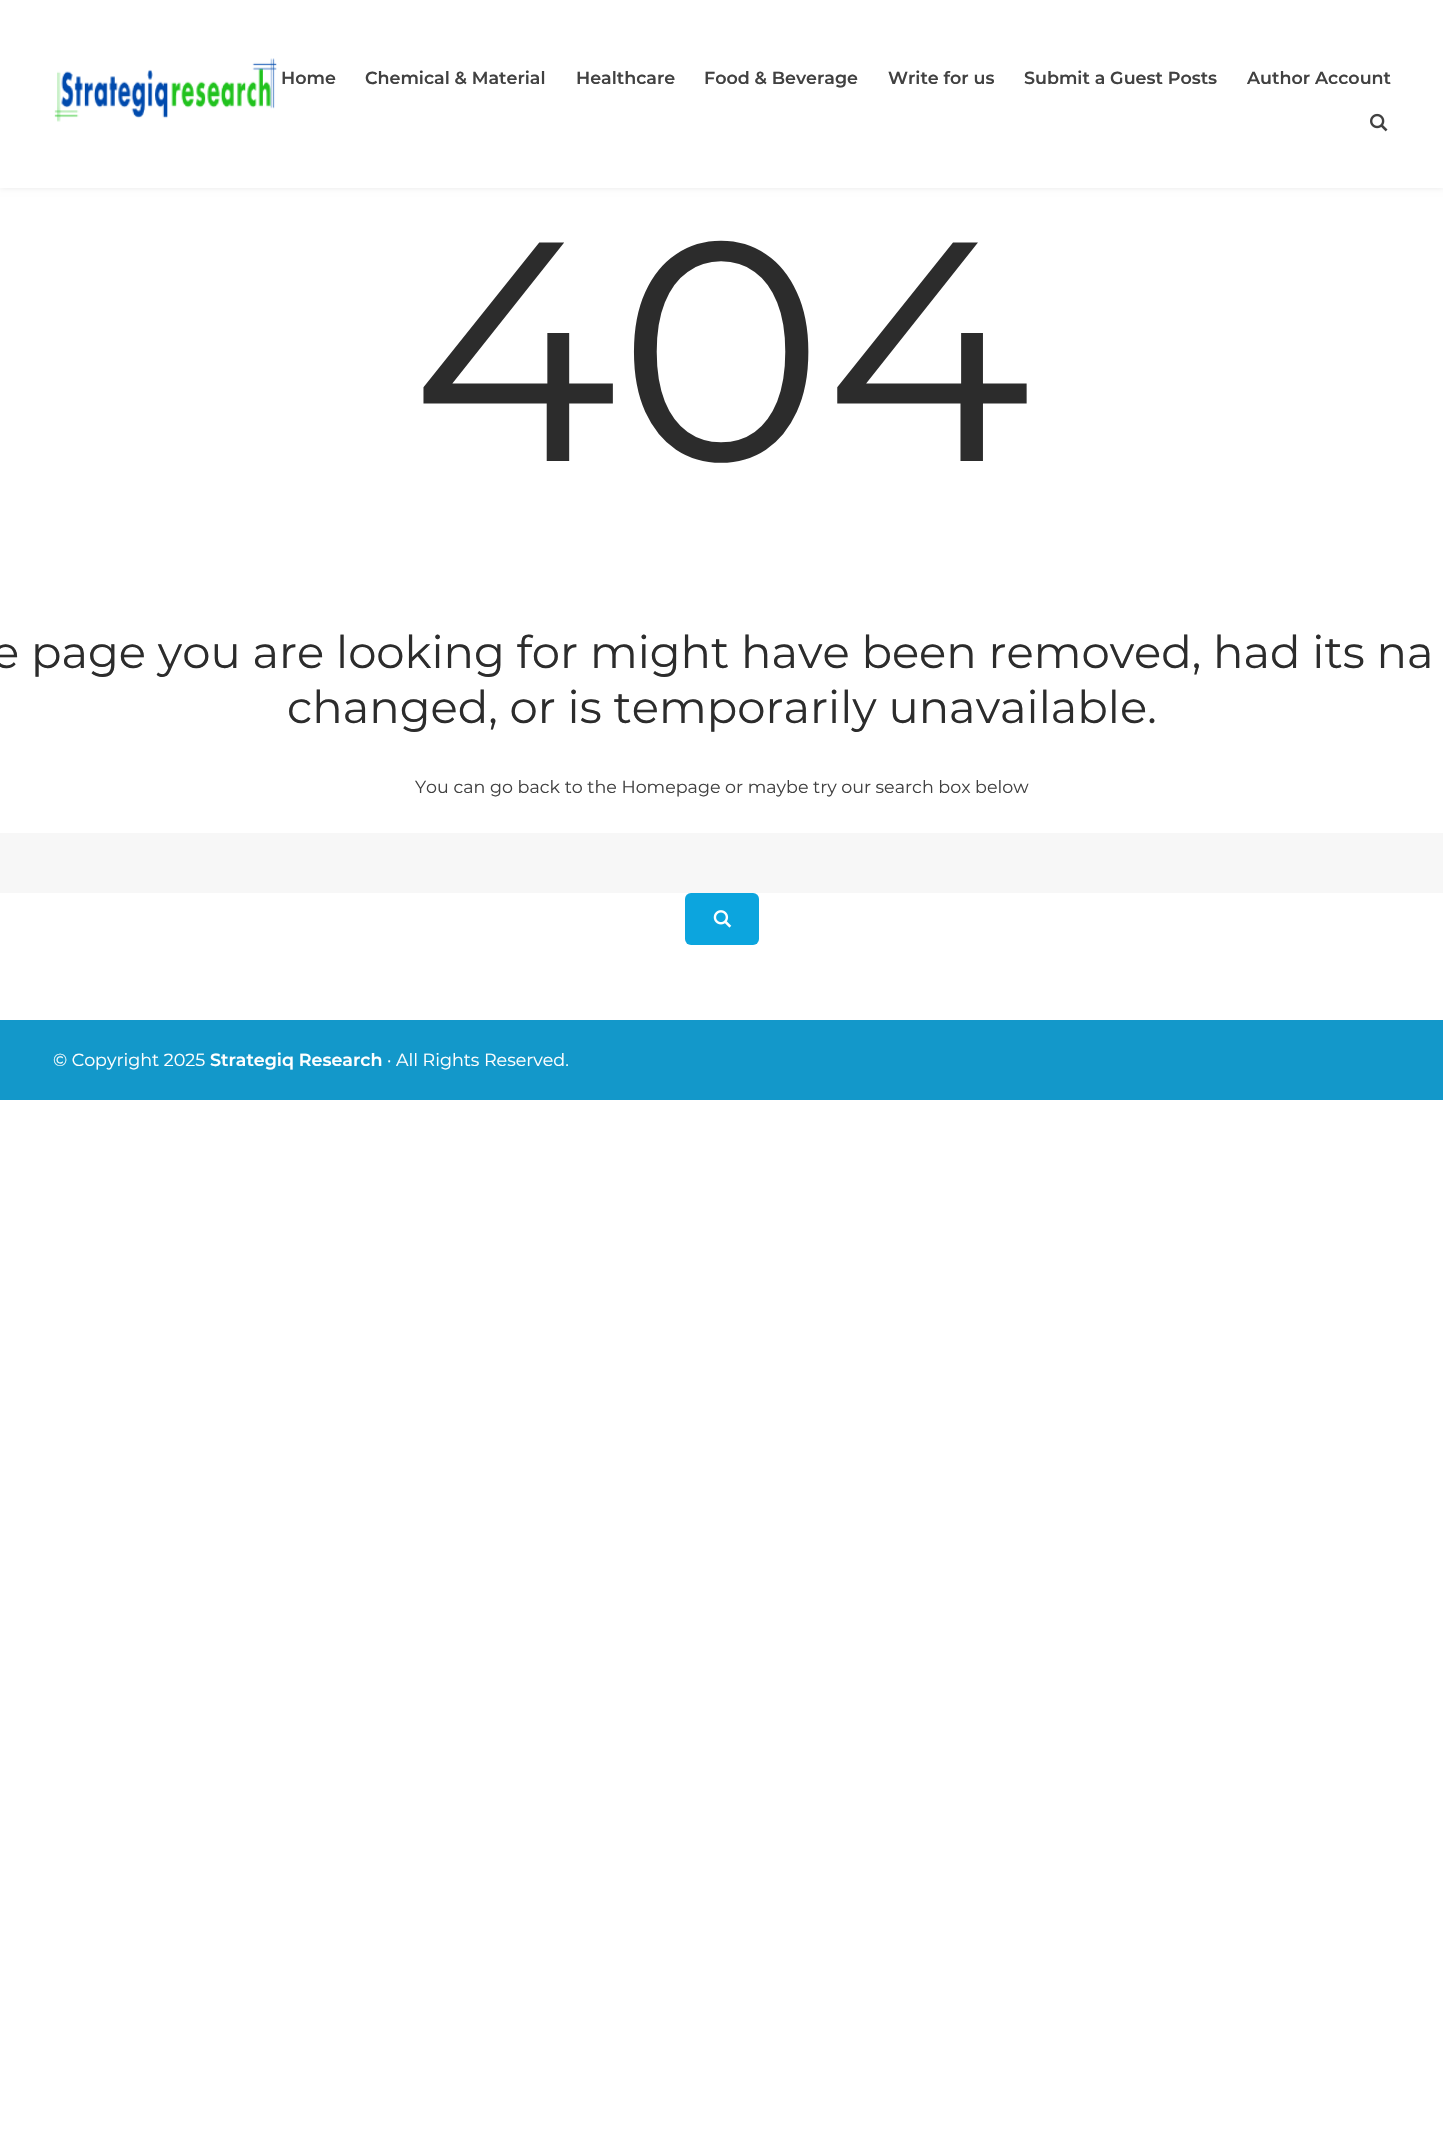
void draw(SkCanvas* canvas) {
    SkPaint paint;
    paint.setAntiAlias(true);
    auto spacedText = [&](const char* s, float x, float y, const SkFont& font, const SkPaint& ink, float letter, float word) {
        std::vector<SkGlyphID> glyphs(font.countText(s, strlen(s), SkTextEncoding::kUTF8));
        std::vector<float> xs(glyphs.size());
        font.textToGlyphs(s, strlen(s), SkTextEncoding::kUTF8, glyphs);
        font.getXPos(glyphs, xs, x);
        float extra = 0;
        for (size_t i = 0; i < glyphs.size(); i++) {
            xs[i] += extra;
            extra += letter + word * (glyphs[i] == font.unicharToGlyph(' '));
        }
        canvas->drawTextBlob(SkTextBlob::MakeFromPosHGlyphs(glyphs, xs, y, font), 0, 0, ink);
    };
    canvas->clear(0xFFFFFFFF);
    paint.setColor(0x17000000);
    paint.setMaskFilter(SkMaskFilter::MakeBlur(kNormal_SkBlurStyle, 3));
    canvas->drawRect(SkRect::MakeXYWH(0, 0, 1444, 188), paint);
    paint.setMaskFilter(nullptr);
    paint.setColor(0xFFFFFFFF);
    canvas->drawRect(SkRect::MakeXYWH(0, 0, 1443, 188), paint);
    canvas->drawImageRect(SkImages::DeferredFromEncodedData(SkData::MakeFromFileName("img1.png")), SkRect::MakeXYWH(54, 58, 223, 64), SkSamplingOptions());
    SkFont font1(fontMgr->matchFamilyStyle("Montserrat", SkFontStyle(600, SkFontStyle::kNormal_Width, SkFontStyle::kUpright_Slant)), 17.5f);
    font1.setSubpixel(true);
    paint.setColor(0xFF414141);
    canvas->drawString("Home", 281, 84, font1, paint);
    canvas->drawString("Chemical & Material", 365, 84, font1, paint);
    canvas->drawString("Healthcare", 576, 84, font1, paint);
    canvas->drawString("Food & Beverage", 704, 84, font1, paint);
    canvas->drawString("Write for us", 888, 84, font1, paint);
    canvas->drawString("Submit a Guest Posts", 1024, 84, font1, paint);
    canvas->drawString("Author Account", 1247, 84, font1, paint);
    canvas->drawImageRect(SkImages::DeferredFromEncodedData(SkData::MakeFromFileName("img2.png")), SkRect::MakeXYWH(1370, 113, 18, 19), SkSamplingOptions());
    SkFont font2(fontMgr->matchFamilyStyle("Montserrat", SkFontStyle::Normal()), 312);
    font2.setSubpixel(true);
    paint.setColor(0xFF2C2C2C);
    spacedText("404", 411, 461, font2, paint, 0.5f, 0);
    SkFont font3(fontMgr->matchFamilyStyle("Montserrat", SkFontStyle::Normal()), 45);
    font3.setSubpixel(true);
    canvas->drawString("e page you are looking for might have been removed, had its na", -8, 668, font3, paint);
    canvas->drawString("changed, or is temporarily unavailable.", 287, 723, font3, paint);
    SkFont font4(fontMgr->matchFamilyStyle("Montserrat", SkFontStyle::Normal()), 17.5f);
    font4.setSubpixel(true);
    paint.setColor(0xFF414141);
    canvas->drawString("You can go back to the Homepage or maybe try our search box below", 415, 793, font4, paint);
    paint.setColor(0xFFF7F7F7);
    canvas->drawRect(SkRect::MakeXYWH(0, 833, 1443, 60), paint);
    paint.setColor(0xFF0CA5DE);
    canvas->drawRoundRect(SkRect::MakeXYWH(685, 893, 74, 52), 6, 6, paint);
    canvas->drawImageRect(SkImages::DeferredFromEncodedData(SkData::MakeFromFileName("img3.png")), SkRect::MakeXYWH(713, 910, 19, 18), SkSamplingOptions());
    paint.setColor(0xFF1398CA);
    canvas->drawRect(SkRect::MakeXYWH(0, 1020, 1443, 80), paint);
    paint.setColor(0xFFFFFFFF);
    canvas->drawString("© Copyright 2025", 53, 1066, font4, paint);
    canvas->drawString("Strategiq Research", 210, 1066, font1, paint);
    canvas->drawString("· All Rights Reserved.", 387, 1066, font4, paint);
}
